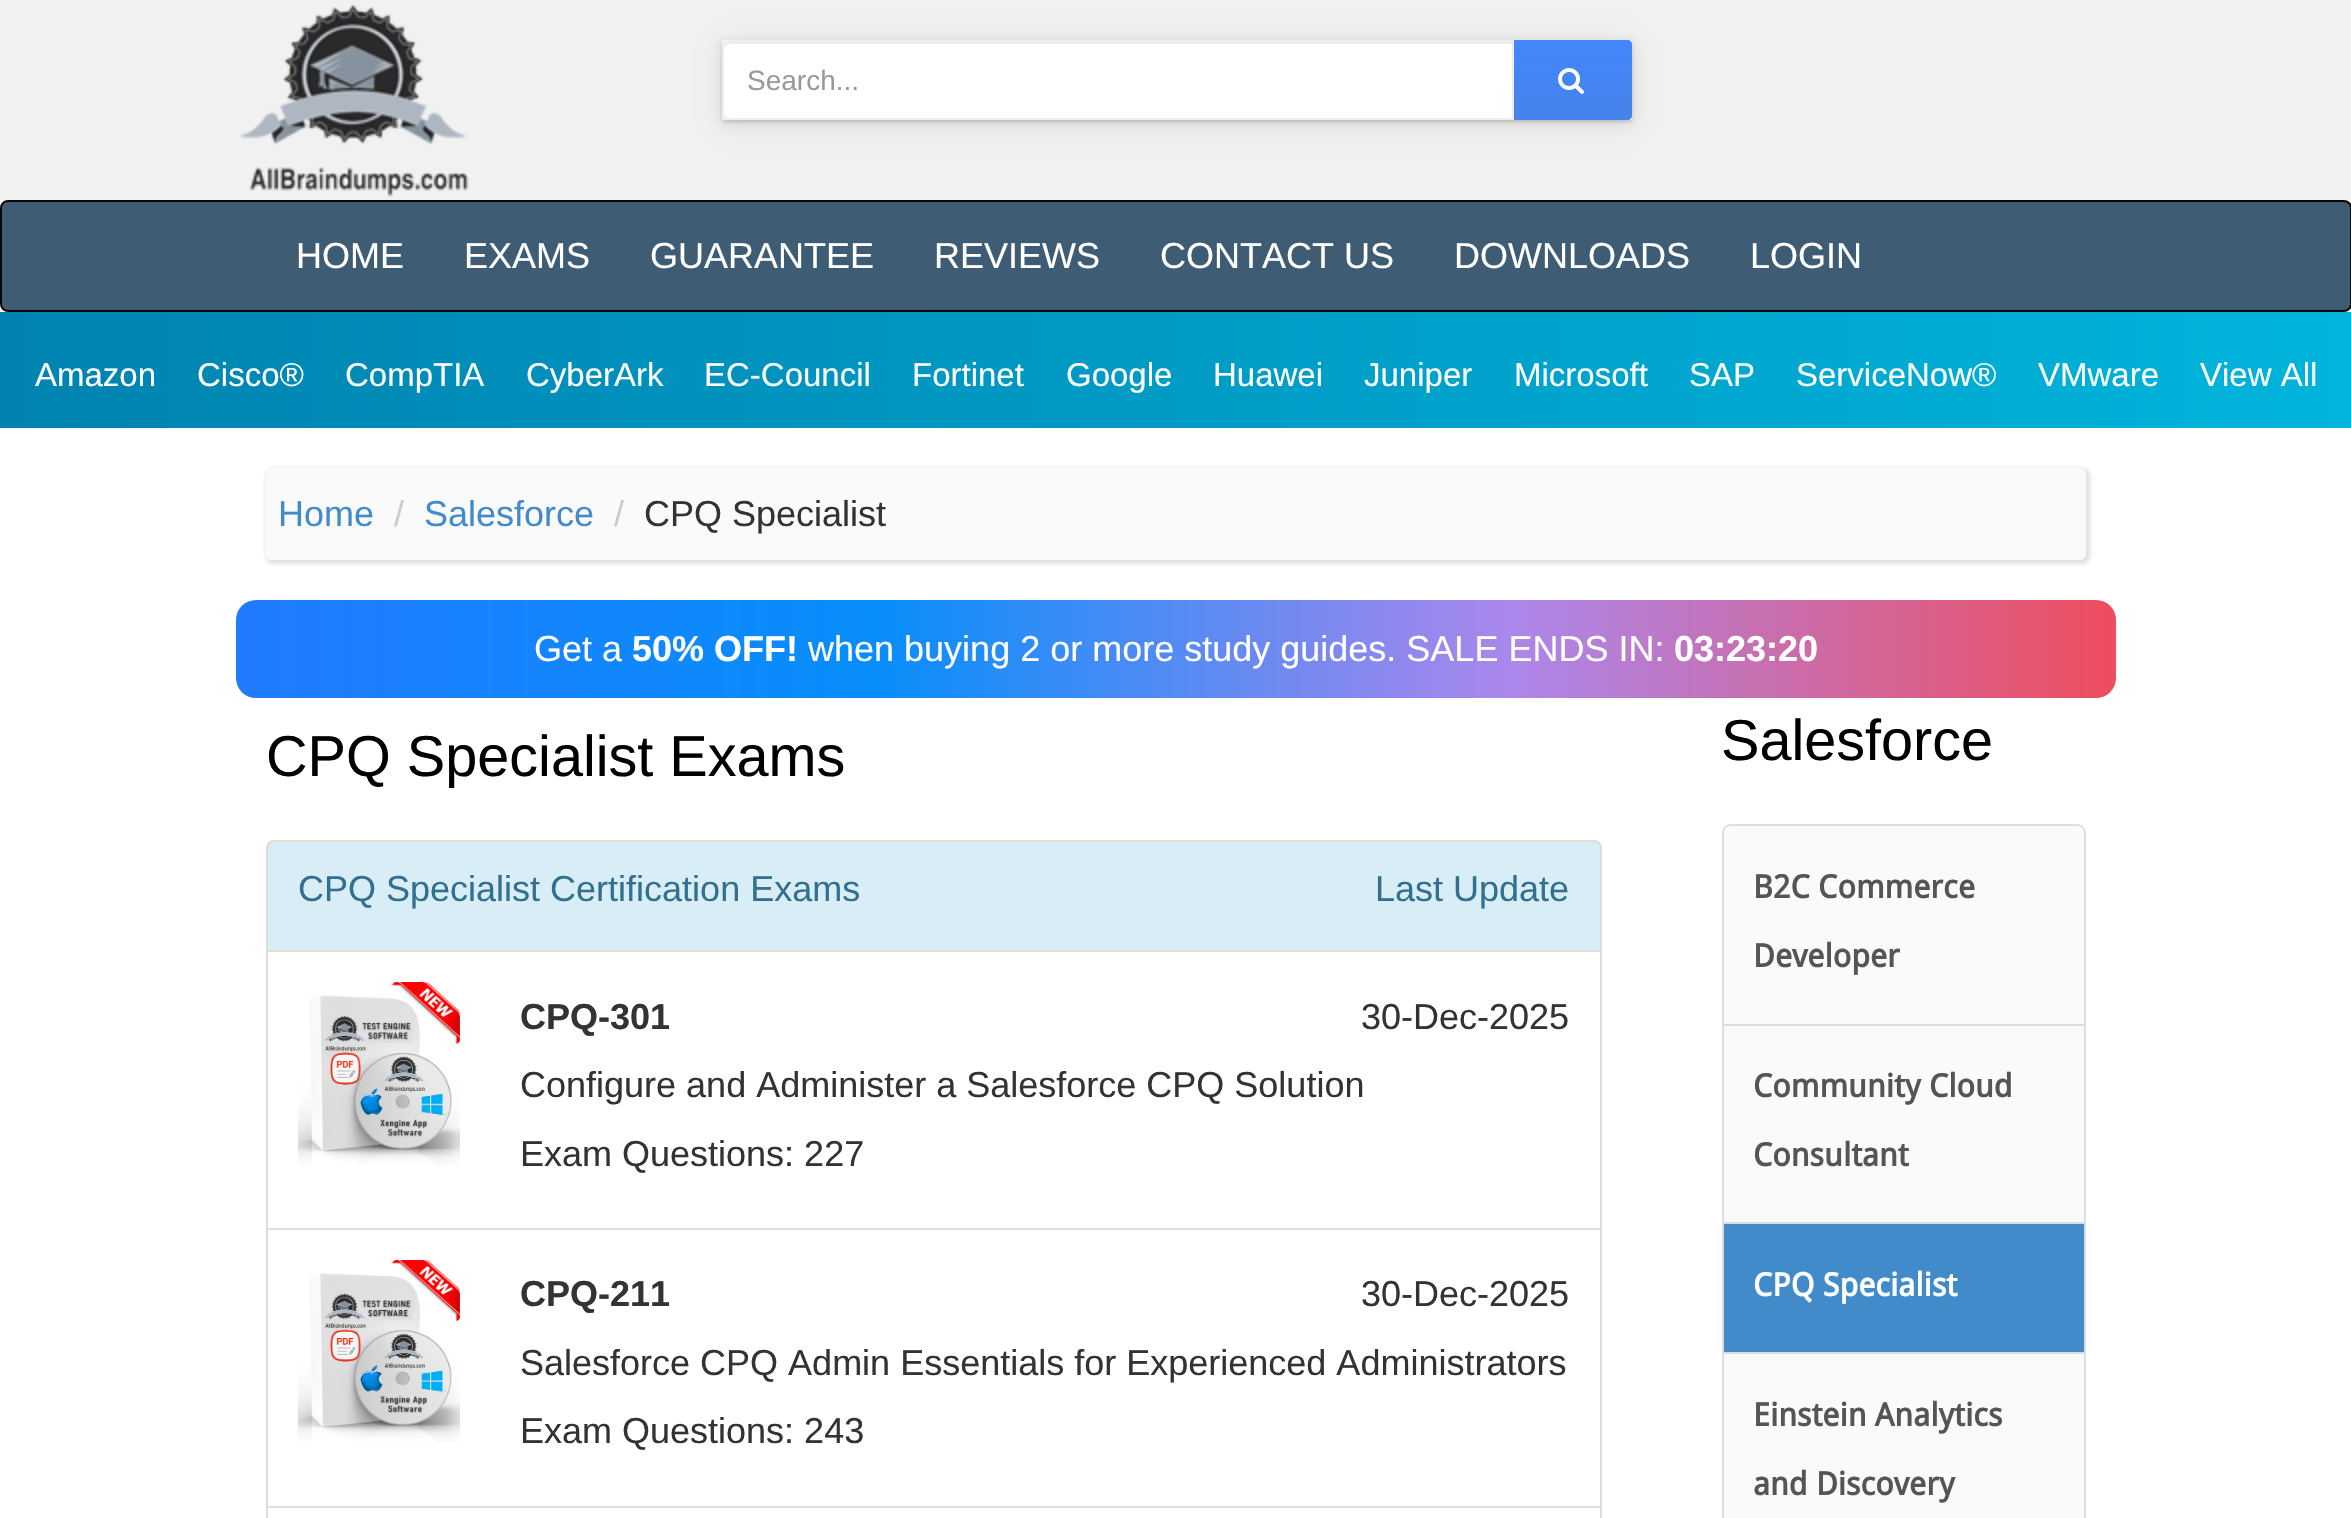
void draw(SkCanvas* canvas) {
    SkPaint paint;
    paint.setAntiAlias(true);
    canvas->clear(0xFFFFFFFF);
    paint.setColor(0xFFF1F1F1);
    canvas->drawRect(SkRect::MakeXYWH(0, 0, 2351, 200), paint);
    canvas->drawImageRect(SkImages::DeferredFromEncodedData(SkData::MakeFromFileName("img1.png")), SkRect::MakeXYWH(239, 4, 230, 193), SkSamplingOptions());
    canvas->save();
    canvas->clipPath(SkPathBuilder(SkPathFillType::kEvenOdd).moveTo(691, 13).lineTo(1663, 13).lineTo(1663, 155).lineTo(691, 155).close().moveTo(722, 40).lineTo(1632, 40).lineTo(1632, 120).lineTo(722, 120).close().detach(), true);
    paint.setColor(0x1F000000);
    paint.setMaskFilter(SkMaskFilter::MakeBlur(kNormal_SkBlurStyle, 10));
    canvas->drawRect(SkRect::MakeXYWH(722, 44, 910, 80), paint);
    paint.setMaskFilter(nullptr);
    canvas->restore();
    canvas->save();
    canvas->clipPath(SkPathBuilder(SkPathFillType::kEvenOdd).moveTo(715, 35).lineTo(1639, 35).lineTo(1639, 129).lineTo(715, 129).close().moveTo(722, 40).lineTo(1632, 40).lineTo(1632, 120).lineTo(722, 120).close().detach(), true);
    paint.setColor(0x29000000);
    paint.setMaskFilter(SkMaskFilter::MakeBlur(kNormal_SkBlurStyle, 2));
    canvas->drawRect(SkRect::MakeXYWH(722, 42, 910, 80), paint);
    paint.setMaskFilter(nullptr);
    canvas->restore();
    {
        const SkColor colors[] = {0xFF4387FD, 0xFF4683EA};
        const float stops[] = {0, 1};
        const SkPoint ends[] = {{1572, 40}, {1572, 120}};
        paint.setShader(SkGradientShader::MakeLinear(ends, colors, stops, 2, SkTileMode::kClamp));
        paint.setAlpha(255);
    }
    canvas->drawPath(SkPathBuilder().moveTo(1512, 40).lineTo(1628, 40).cubicTo(1630, 40, 1632, 42, 1632, 44).lineTo(1632, 116).cubicTo(1632, 118, 1630, 120, 1628, 120).lineTo(1512, 120).close().detach(), paint);
    paint.setShader(nullptr);
    paint.setColor(0xFFFFFFFF);
    canvas->drawPath(SkPathBuilder().moveTo(730, 40).lineTo(1514, 40).lineTo(1514, 120).lineTo(730, 120).cubicTo(725.5f, 120, 722, 116.5f, 722, 112).lineTo(722, 48).cubicTo(722, 43.5f, 725.5f, 40, 730, 40).close().detach(), paint);
    paint.setColor(0xFFECECEC);
    canvas->drawPath(SkPathBuilder().moveTo(730, 44).lineTo(1512, 44).lineTo(1512, 42).lineTo(730, 42).cubicTo(727, 42, 724, 45, 724, 48).lineTo(724, 50).cubicTo(724, 47, 727, 44, 730, 44).close().detach(), paint);
    paint.setStyle(SkPaint::kStroke_Style);
    paint.setStrokeWidth(2);
    paint.setColor(0xFFEEEEEE);
    canvas->drawPath(SkPathBuilder().moveTo(730, 41).lineTo(1513, 41).lineTo(1513, 119).lineTo(730, 119).cubicTo(726, 119, 723, 116, 723, 112).lineTo(723, 48).cubicTo(723, 44, 726, 41, 730, 41).close().detach(), paint);
    SkFont font1(fontMgr->matchFamilyStyle("Liberation Sans", SkFontStyle::Normal()), 28);
    font1.setSubpixel(true);
    paint.setStyle(SkPaint::kFill_Style);
    paint.setColor(0xFF999999);
    canvas->drawString("Search...", 747, 90, font1, paint);
    canvas->drawImageRect(SkImages::DeferredFromEncodedData(SkData::MakeFromFileName("img2.png")), SkRect::MakeXYWH(1558, 68, 26, 26), SkSamplingOptions());
    paint.setColor(0xFF3E5C74);
    canvas->drawRoundRect(SkRect::MakeXYWH(1, 201, 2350, 110), 7, 7, paint);
    paint.setStyle(SkPaint::kStroke_Style);
    paint.setColor(0xFF080808);
    canvas->drawRoundRect(SkRect::MakeXYWH(1, 201, 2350, 110), 7, 7, paint);
    SkFont font2(fontMgr->matchFamilyStyle("Liberation Sans", SkFontStyle::Normal()), 36);
    font2.setSubpixel(true);
    paint.setStyle(SkPaint::kFill_Style);
    paint.setColor(0xFFFFFFFF);
    canvas->drawString("HOME", 296, 268, font2, paint);
    canvas->drawString("EXAMS", 464, 268, font2, paint);
    canvas->drawString("GUARANTEE", 650, 268, font2, paint);
    canvas->drawString("REVIEWS", 934, 268, font2, paint);
    canvas->drawString("CONTACT US", 1160, 268, font2, paint);
    canvas->drawString("DOWNLOADS", 1454, 268, font2, paint);
    canvas->drawString("LOGIN", 1750, 268, font2, paint);
    {
        const SkColor colors[] = {0xFF0083B0, 0xFF00B4DB};
        const float stops[] = {0, 1};
        const SkPoint ends[] = {{0, 370}, {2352, 370}};
        paint.setShader(SkGradientShader::MakeLinear(ends, colors, stops, 2, SkTileMode::kClamp));
        paint.setAlpha(255);
    }
    canvas->drawRect(SkRect::MakeXYWH(0, 312, 2351, 116), paint);
    SkFont font3(fontMgr->matchFamilyStyle("Liberation Sans", SkFontStyle::Normal()), 33);
    font3.setSubpixel(true);
    paint.setShader(nullptr);
    paint.setColor(0xFFFFFFFF);
    canvas->drawString("Amazon", 35, 386, font3, paint);
    canvas->drawString("Cisco®", 197, 386, font3, paint);
    canvas->drawString("CompTIA", 345, 386, font3, paint);
    canvas->drawString("CyberArk", 526, 386, font3, paint);
    canvas->drawString("EC-Council", 704, 386, font3, paint);
    canvas->drawString("Fortinet", 912, 386, font3, paint);
    canvas->drawString("Google", 1066, 386, font3, paint);
    canvas->drawString("Huawei", 1213, 386, font3, paint);
    canvas->drawString("Juniper", 1364, 386, font3, paint);
    canvas->drawString("Microsoft", 1514, 386, font3, paint);
    canvas->drawString("SAP", 1689, 386, font3, paint);
    canvas->drawString("ServiceNow®", 1796, 386, font3, paint);
    canvas->drawString("VMware", 2038, 386, font3, paint);
    canvas->drawString("View All", 2200, 386, font3, paint);
    paint.setColor(0x261B2B3A);
    paint.setMaskFilter(SkMaskFilter::MakeBlur(kNormal_SkBlurStyle, 2));
    canvas->drawRoundRect(SkRect::MakeXYWH(266, 468, 1824, 96), 8, 8, paint);
    paint.setMaskFilter(nullptr);
    paint.setColor(0xFFFAFAFA);
    canvas->drawRoundRect(SkRect::MakeXYWH(266, 468, 1820, 92), 6, 6, paint);
    paint.setColor(0xFF428BCA);
    canvas->drawString("Home", 278, 526, font2, paint);
    paint.setColor(0xFFCCCCCC);
    canvas->drawString("/", 394, 526, font2, paint);
    paint.setColor(0xFF428BCA);
    canvas->drawString("Salesforce", 424, 526, font2, paint);
    paint.setColor(0xFFCCCCCC);
    canvas->drawString("/", 614, 526, font2, paint);
    paint.setColor(0xFF333333);
    canvas->drawString("CPQ Specialist", 644, 526, font2, paint);
    {
        const SkColor colors[] = {0xFF217BFE, 0xFF078EFB, 0xFFAC87EB, 0xFFEE4D5D};
        const float stops[] = {0, 0.34f, 0.68f, 1};
        const SkPoint ends[] = {{236, 649}, {2116, 649}};
        paint.setShader(SkGradientShader::MakeLinear(ends, colors, stops, 4, SkTileMode::kClamp));
        paint.setAlpha(255);
    }
    canvas->drawRoundRect(SkRect::MakeXYWH(236, 600, 1880, 98), 20, 20, paint);
    paint.setShader(nullptr);
    paint.setColor(0xFFFFFFFF);
    canvas->drawString("Get a", 534, 661, font2, paint);
    SkFont font4(fontMgr->matchFamilyStyle("Liberation Sans", SkFontStyle::Bold()), 36);
    font4.setSubpixel(true);
    canvas->drawString("50% OFF!", 632, 661, font4, paint);
    canvas->drawString("when buying 2 or more study guides. SALE ENDS IN:", 808, 661, font2, paint);
    canvas->drawString("03:23:20", 1674, 661, font4, paint);
    SkFont font5(fontMgr->matchFamilyStyle("Liberation Sans", SkFontStyle::Normal()), 57.6f);
    font5.setSubpixel(true);
    paint.setColor(0xFF000000);
    canvas->drawString("CPQ Specialist Exams", 266, 776, font5, paint);
    paint.setColor(0xFFD9EDF7);
    canvas->drawPath(SkPathBuilder().moveTo(274, 841).lineTo(1594, 841).cubicTo(1598, 841, 1601, 844, 1601, 848).lineTo(1601, 951).lineTo(267, 951).lineTo(267, 848).cubicTo(267, 844, 270, 841, 274, 841).close().detach(), paint);
    paint.setStyle(SkPaint::kStroke_Style);
    paint.setColor(0xFFDDDDDD);
    canvas->drawPath(SkPathBuilder().moveTo(274, 841).lineTo(1594, 841).cubicTo(1598, 841, 1601, 844, 1601, 848).lineTo(1601, 951).lineTo(267, 951).lineTo(267, 848).cubicTo(267, 844, 270, 841, 274, 841).close().detach(), paint);
    paint.setStyle(SkPaint::kFill_Style);
    paint.setColor(0xFF31708F);
    canvas->drawString("CPQ Specialist Certification Exams", 298, 901, font2, paint);
    canvas->drawString("Last Update", 1375, 901, font2, paint);
    paint.setStyle(SkPaint::kStroke_Style);
    paint.setColor(0xFFDDDDDD);
    canvas->drawRect(SkRect::MakeXYWH(267, 951, 1334, 278), paint);
    canvas->drawImageRect(SkImages::DeferredFromEncodedData(SkData::MakeFromFileName("img3.png")), SkRect::MakeXYWH(298, 982, 162, 184), SkSamplingOptions());
    paint.setStyle(SkPaint::kFill_Style);
    paint.setColor(0xFF333333);
    canvas->drawString("CPQ-301", 520, 1029, font4, paint);
    canvas->drawString("30-Dec-2025", 1361, 1029, font2, paint);
    canvas->drawString("Configure and Administer a Salesforce CPQ Solution", 520, 1097, font2, paint);
    canvas->drawString("Exam Questions: 227", 520, 1166, font2, paint);
    paint.setStyle(SkPaint::kStroke_Style);
    paint.setColor(0xFFDDDDDD);
    canvas->drawRect(SkRect::MakeXYWH(267, 1229, 1334, 278), paint);
    canvas->drawImageRect(SkImages::DeferredFromEncodedData(SkData::MakeFromFileName("img4.png")), SkRect::MakeXYWH(298, 1260, 162, 182), SkSamplingOptions());
    paint.setStyle(SkPaint::kFill_Style);
    paint.setColor(0xFF333333);
    canvas->drawString("CPQ-211", 520, 1306, font4, paint);
    canvas->drawString("30-Dec-2025", 1361, 1306, font2, paint);
    canvas->drawString("Salesforce CPQ Admin Essentials for Experienced Administrators", 520, 1375, font2, paint);
    canvas->drawString("Exam Questions: 243", 520, 1443, font2, paint);
    paint.setStyle(SkPaint::kStroke_Style);
    paint.setColor(0xFFDDDDDD);
    canvas->drawRect(SkRect::MakeXYWH(267, 1507, 1334, 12), paint);
    paint.setStyle(SkPaint::kFill_Style);
    paint.setColor(0xFF000000);
    canvas->drawString("Salesforce", 1721, 760, font5, paint);
    paint.setColor(0xFFFAFAFA);
    canvas->drawRoundRect(SkRect::MakeXYWH(1722, 824, 364, 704), 10, 10, paint);
    paint.setColor(0xFFDDDDDD);
    canvas->drawPath(SkPathBuilder(SkPathFillType::kEvenOdd).moveTo(1732, 824).cubicTo(1726, 824, 1722, 828, 1722, 834).lineTo(1722, 1026).lineTo(2086, 1026).lineTo(2086, 834).cubicTo(2086, 828, 2082, 824, 2076, 824).close().moveTo(1730, 826).cubicTo(1727, 826, 1724, 829, 1724, 832).lineTo(1724, 1024).lineTo(2084, 1024).lineTo(2084, 832).cubicTo(2084, 829, 2081, 826, 2078, 826).close().detach(), paint);
    SkFont font6(fontMgr->matchFamilyStyle("Droid Sans", SkFontStyle::Bold()), 32);
    font6.setSubpixel(true);
    paint.setColor(0xFF555555);
    canvas->drawString("B2C Commerce", 1753, 898, font6, paint);
    canvas->drawString("Developer", 1753, 967, font6, paint);
    paint.setStyle(SkPaint::kStroke_Style);
    paint.setColor(0xFFDDDDDD);
    canvas->drawRect(SkRect::MakeXYWH(1723, 1025, 362, 198), paint);
    paint.setStyle(SkPaint::kFill_Style);
    paint.setColor(0xFF555555);
    canvas->drawString("Community Cloud", 1753, 1097, font6, paint);
    canvas->drawString("Consultant", 1753, 1166, font6, paint);
    paint.setStyle(SkPaint::kStroke_Style);
    paint.setColor(0xFFDDDDDD);
    canvas->drawRect(SkRect::MakeXYWH(1723, 1353, 362, 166), paint);
    paint.setStyle(SkPaint::kFill_Style);
    paint.setColor(0xFF428BCA);
    canvas->drawRect(SkRect::MakeXYWH(1723, 1223, 362, 130), paint);
    paint.setStyle(SkPaint::kStroke_Style);
    paint.setColor(0xFFDDDDDD);
    canvas->drawRect(SkRect::MakeXYWH(1723, 1223, 362, 130), paint);
    paint.setStyle(SkPaint::kFill_Style);
    paint.setColor(0xFFFFFFFF);
    canvas->drawString("CPQ Specialist", 1753, 1296, font6, paint);
    paint.setColor(0xFF555555);
    canvas->drawString("Einstein Analytics", 1753, 1426, font6, paint);
    canvas->drawString("and Discovery", 1753, 1495, font6, paint);
}
